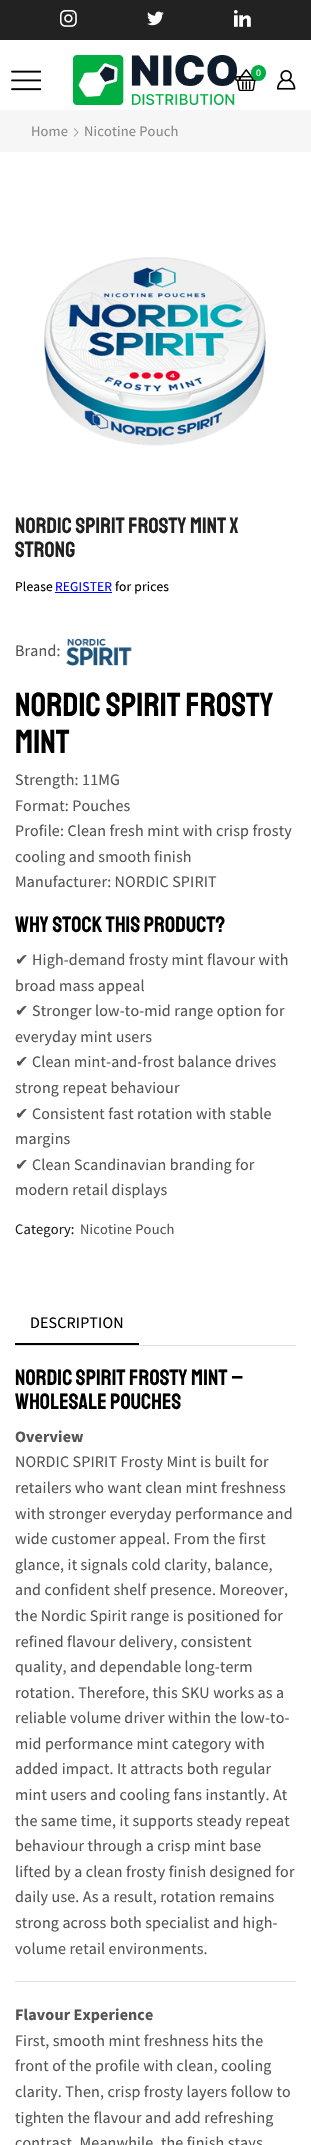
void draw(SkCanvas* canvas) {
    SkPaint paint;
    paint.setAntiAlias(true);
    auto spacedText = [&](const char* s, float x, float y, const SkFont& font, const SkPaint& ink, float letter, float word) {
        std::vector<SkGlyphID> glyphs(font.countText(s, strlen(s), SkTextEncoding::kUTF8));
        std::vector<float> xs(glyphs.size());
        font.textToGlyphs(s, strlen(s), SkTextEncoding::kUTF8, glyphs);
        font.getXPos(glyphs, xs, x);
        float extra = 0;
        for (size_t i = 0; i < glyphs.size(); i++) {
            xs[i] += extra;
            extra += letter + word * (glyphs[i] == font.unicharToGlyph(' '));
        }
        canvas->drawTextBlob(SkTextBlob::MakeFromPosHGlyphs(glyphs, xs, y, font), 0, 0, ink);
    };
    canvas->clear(0xFFFFFFFF);
    paint.setColor(0xFF222222);
    canvas->drawRect(SkRect::MakeXYWH(0, 0, 311, 40), paint);
    canvas->drawImageRect(SkImages::DeferredFromEncodedData(SkData::MakeFromFileName("img1.png")), SkRect::MakeXYWH(60, 10, 17, 17), SkSamplingOptions());
    canvas->drawImageRect(SkImages::DeferredFromEncodedData(SkData::MakeFromFileName("img2.png")), SkRect::MakeXYWH(147, 11, 17, 15), SkSamplingOptions());
    canvas->drawImageRect(SkImages::DeferredFromEncodedData(SkData::MakeFromFileName("img3.png")), SkRect::MakeXYWH(234, 10, 17, 17), SkSamplingOptions());
    canvas->drawImageRect(SkImages::DeferredFromEncodedData(SkData::MakeFromFileName("img4.png")), SkRect::MakeXYWH(11, 70, 30, 21), SkSamplingOptions());
    canvas->drawImageRect(SkImages::DeferredFromEncodedData(SkData::MakeFromFileName("img5.png")), SkRect::MakeXYWH(73, 55, 164, 50), SkSamplingOptions());
    canvas->drawImageRect(SkImages::DeferredFromEncodedData(SkData::MakeFromFileName("img6.png")), SkRect::MakeXYWH(235, 69, 22, 22), SkSamplingOptions());
    paint.setColor(0xFF00AE43);
    canvas->drawRoundRect(SkRect::MakeXYWH(251, 65, 15, 16), 7.5f, 7.5f, paint);
    SkFont font1(fontMgr->matchFamilyStyle("Source Sans Pro", SkFontStyle::Normal()), 10);
    font1.setSubpixel(true);
    paint.setColor(0xFFFFFFFF);
    spacedText("0", 256, 76, font1, paint, 0.15f, 0);
    canvas->drawImageRect(SkImages::DeferredFromEncodedData(SkData::MakeFromFileName("img7.png")), SkRect::MakeXYWH(277, 70, 19, 20), SkSamplingOptions());
    paint.setColor(0xFFF6F6F6);
    canvas->drawRect(SkRect::MakeXYWH(0, 110, 311, 42), paint);
    SkFont font2(fontMgr->matchFamilyStyle("Source Sans Pro", SkFontStyle::Normal()), 14.5f);
    font2.setSubpixel(true);
    paint.setColor(0xFF888888);
    spacedText("Home", 31, 136, font2, paint, 0.15f, 0);
    canvas->drawImageRect(SkImages::DeferredFromEncodedData(SkData::MakeFromFileName("img8.png")), SkRect::MakeXYWH(74, 128, 5, 9), SkSamplingOptions());
    spacedText("Nicotine Pouch", 84, 136, font2, paint, 0.15f, 0);
    canvas->drawImageRect(SkImages::DeferredFromEncodedData(SkData::MakeFromFileName("img9.png")), SkRect::MakeXYWH(44, 257, 222, 189), SkSamplingOptions());
    SkFont font3(fontMgr->matchFamilyStyle("Staatliches", SkFontStyle::Normal()), 22.1f);
    font3.setSubpixel(true);
    paint.setColor(0xFF222222);
    spacedText("NORDIC SPIRIT Frosty Mint X", 15, 533, font3, paint, 0.15f, 0);
    spacedText("Strong", 15, 557, font3, paint, 0.15f, 0);
    SkFont font4(fontMgr->matchFamilyStyle("Source Sans Pro", SkFontStyle::Normal()), 13.5f);
    font4.setSubpixel(true);
    paint.setColor(0xFF000000);
    spacedText("Please", 15, 591, font4, paint, 0.15f, 0);
    paint.setColor(0xFF0000FF);
    spacedText("REGISTER", 55, 591, font4, paint, 0.15f, 0);
    canvas->drawRect(SkRect::MakeXYWH(55, 592, 57, 1), paint);
    paint.setColor(0xFF000000);
    spacedText("for prices", 115, 591, font4, paint, 0.15f, 0);
    SkFont font5(fontMgr->matchFamilyStyle("Source Sans Pro", SkFontStyle::Normal()), 16);
    font5.setSubpixel(true);
    paint.setColor(0xFF555555);
    spacedText("Brand:", 15, 656, font5, paint, 0.15f, 0);
    canvas->drawImageRect(SkImages::DeferredFromEncodedData(SkData::MakeFromFileName("img10.png")), SkRect::MakeXYWH(66, 638, 66, 28), SkSamplingOptions());
    SkFont font6(fontMgr->matchFamilyStyle("Staatliches", SkFontStyle::Normal()), 33.5f);
    font6.setSubpixel(true);
    paint.setColor(0xFF000000);
    spacedText("NORDIC SPIRIT FROSTY", 15, 716, font6, paint, 0.15f, 0);
    spacedText("MINT", 15, 753, font6, paint, 0.15f, 0);
    paint.setColor(0xFF555555);
    spacedText("Strength: 11MG", 15, 785, font5, paint, 0.15f, 0);
    spacedText("Format: Pouches", 15, 811, font5, paint, 0.15f, 0);
    spacedText("Profile: Clean fresh mint with crisp frosty", 15, 836, font5, paint, 0.15f, 0);
    spacedText("cooling and smooth finish", 15, 862, font5, paint, 0.15f, 0);
    spacedText("Manufacturer: NORDIC SPIRIT", 15, 887, font5, paint, 0.15f, 0);
    SkFont font7(fontMgr->matchFamilyStyle("Staatliches", SkFontStyle::Normal()), 22.25f);
    font7.setSubpixel(true);
    paint.setColor(0xFF000000);
    spacedText("WHY STOCK THIS PRODUCT?", 15, 932, font7, paint, 0.15f, 0);
    SkFont font8(fontMgr->matchFamilyStyle("DejaVu Sans", SkFontStyle::Normal()), 16);
    font8.setSubpixel(true);
    paint.setColor(0xFF555555);
    spacedText("✔", 15, 965, font8, paint, 0.15f, 0);
    spacedText("High-demand frosty mint flavour with", 32, 965, font5, paint, 0.15f, 0);
    spacedText("broad mass appeal", 15, 991, font5, paint, 0.15f, 0);
    spacedText("✔", 15, 1016, font8, paint, 0.15f, 0);
    spacedText("Stronger low-to-mid range option for", 32, 1016, font5, paint, 0.15f, 0);
    spacedText("everyday mint users", 15, 1042, font5, paint, 0.15f, 0);
    spacedText("✔", 15, 1067, font8, paint, 0.15f, 0);
    spacedText("Clean mint-and-frost balance drives", 32, 1067, font5, paint, 0.15f, 0);
    spacedText("strong repeat behaviour", 15, 1093, font5, paint, 0.15f, 0);
    spacedText("✔", 15, 1119, font8, paint, 0.15f, 0);
    spacedText("Consistent fast rotation with stable", 32, 1119, font5, paint, 0.15f, 0);
    spacedText("margins", 15, 1144, font5, paint, 0.15f, 0);
    spacedText("✔", 15, 1170, font8, paint, 0.15f, 0);
    spacedText("Clean Scandinavian branding for", 32, 1170, font5, paint, 0.15f, 0);
    spacedText("modern retail displays", 15, 1195, font5, paint, 0.15f, 0);
    paint.setColor(0xFF222222);
    spacedText("Category:", 15, 1234, font2, paint, 0.15f, 0);
    paint.setColor(0xFF555555);
    spacedText("Nicotine Pouch", 80, 1234, font2, paint, 0.15f, 0);
    paint.setColor(0xFFE1E1E1);
    canvas->drawRect(SkRect::MakeXYWH(15, 1345, 281, 1), paint);
    paint.setColor(0xFF000000);
    spacedText("DESCRIPTION", 30, 1328, font5, paint, 0.15f, 0);
    canvas->drawRect(SkRect::MakeXYWH(15, 1343, 124, 2), paint);
    spacedText("NORDIC SPIRIT FROSTY MINT –", 15, 1385, font7, paint, 0.15f, 0);
    spacedText("WHOLESALE POUCHES", 15, 1409, font7, paint, 0.15f, 0);
    SkFont font9(fontMgr->matchFamilyStyle("Source Sans Pro", SkFontStyle::Bold()), 16);
    font9.setSubpixel(true);
    paint.setColor(0xFF555555);
    spacedText("Overview", 15, 1442, font9, paint, 0.15f, 0);
    spacedText("NORDIC SPIRIT Frosty Mint is built for", 15, 1467, font5, paint, 0.15f, 0);
    spacedText("retailers who want clean mint freshness", 15, 1493, font5, paint, 0.15f, 0);
    spacedText("with stronger everyday performance and", 15, 1519, font5, paint, 0.15f, 0);
    spacedText("wide customer appeal. From the first", 15, 1544, font5, paint, 0.15f, 0);
    spacedText("glance, it signals cold clarity, balance,", 15, 1570, font5, paint, 0.15f, 0);
    spacedText("and confident shelf presence. Moreover,", 15, 1595, font5, paint, 0.15f, 0);
    spacedText("the Nordic Spirit range is positioned for", 15, 1621, font5, paint, 0.15f, 0);
    spacedText("refined flavour delivery, consistent", 15, 1647, font5, paint, 0.15f, 0);
    spacedText("quality, and dependable long-term", 15, 1672, font5, paint, 0.15f, 0);
    spacedText("rotation. Therefore, this SKU works as a", 15, 1698, font5, paint, 0.15f, 0);
    spacedText("reliable volume driver within the low-to-", 15, 1723, font5, paint, 0.15f, 0);
    spacedText("mid performance mint category with", 15, 1749, font5, paint, 0.15f, 0);
    spacedText("added impact. It attracts both regular", 15, 1774, font5, paint, 0.15f, 0);
    spacedText("mint users and cooling fans instantly. At", 15, 1800, font5, paint, 0.15f, 0);
    spacedText("the same time, it supports steady repeat", 15, 1826, font5, paint, 0.15f, 0);
    spacedText("behaviour through a crisp mint base", 15, 1851, font5, paint, 0.15f, 0);
    spacedText("lifted by a clean frosty finish designed for", 15, 1877, font5, paint, 0.15f, 0);
    spacedText("daily use. As a result, rotation remains", 15, 1902, font5, paint, 0.15f, 0);
    spacedText("strong across both specialist and high-", 15, 1928, font5, paint, 0.15f, 0);
    spacedText("volume retail environments.", 15, 1954, font5, paint, 0.15f, 0);
    paint.setColor(0xFFE1E1E1);
    canvas->drawRect(SkRect::MakeXYWH(15, 1981, 281, 1), paint);
    paint.setColor(0xFF555555);
    spacedText("Flavour Experience", 15, 2020, font9, paint, 0.15f, 0);
    spacedText("First, smooth mint freshness hits the", 15, 2046, font5, paint, 0.15f, 0);
    spacedText("front of the profile with clean, cooling", 15, 2071, font5, paint, 0.15f, 0);
    spacedText("clarity. Then, crisp frosty layers follow to", 15, 2097, font5, paint, 0.15f, 0);
    spacedText("tighten the flavour and add refreshing", 15, 2123, font5, paint, 0.15f, 0);
    spacedText("contrast. Meanwhile, the finish stays", 15, 2148, font5, paint, 0.15f, 0);
}
